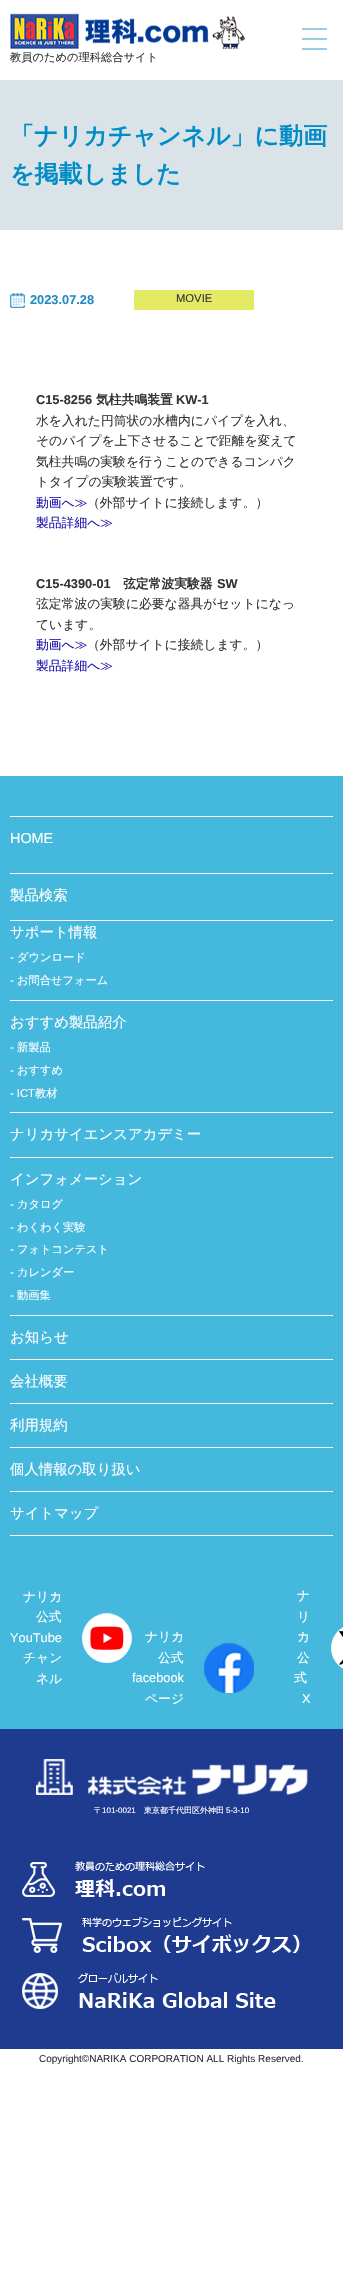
void draw(SkCanvas* canvas) {
    SkPaint paint;
    paint.setAntiAlias(true);
    canvas->clear(0xFFFFFFFF);
    paint.setColor(0xFF9ACBE5);
    canvas->drawRect(SkRect::MakeXYWH(302, 38, 25, 2), paint);
    canvas->drawRect(SkRect::MakeXYWH(302, 28, 25, 2), paint);
    canvas->drawRect(SkRect::MakeXYWH(302, 48, 25, 2), paint);
    canvas->drawImageRect(SkImages::DeferredFromEncodedData(SkData::MakeFromFileName("img1.png")), SkRect::MakeXYWH(10, 13, 235, 36), SkSamplingOptions());
    SkFont font1(fontMgr->matchFamilyStyle("WenQuanYi Zen Hei", SkFontStyle(500, SkFontStyle::kNormal_Width, SkFontStyle::kUpright_Slant)), 11.25f);
    font1.setSubpixel(true);
    paint.setColor(0xFF333333);
    canvas->drawString("教員のための理科総合サイト", 10, 61, font1, paint);
    paint.setColor(0xFFDAE3E8);
    canvas->drawRect(SkRect::MakeXYWH(0, 80, 343, 150), paint);
    SkFont font2(fontMgr->matchFamilyStyle("WenQuanYi Zen Hei", SkFontStyle::Bold()), 24);
    font2.setSubpixel(true);
    paint.setColor(0xFF008CC7);
    canvas->drawString("「ナリカチャンネル」に動画", 10, 144, font2, paint);
    canvas->drawString("を掲載しました", 10, 182, font2, paint);
    canvas->drawImageRect(SkImages::DeferredFromEncodedData(SkData::MakeFromFileName("img2.png")), SkRect::MakeXYWH(10, 293, 15, 15), SkSamplingOptions());
    SkFont font3(fontMgr->matchFamilyStyle("Liberation Sans", SkFontStyle::Bold()), 12.8f);
    font3.setSubpixel(true);
    paint.setColor(0xFF218BC3);
    canvas->drawString("2023.07.28", 30, 304, font3, paint);
    paint.setColor(0xFFE5EA64);
    canvas->drawRect(SkRect::MakeXYWH(134, 290, 120, 20), paint);
    SkFont font4(fontMgr->matchFamilyStyle("Liberation Sans", SkFontStyle::Normal()), 11.25f);
    font4.setSubpixel(true);
    paint.setColor(0xFF333333);
    canvas->drawString("MOVIE", 176, 302, font4, paint);
    canvas->drawString("C15-8256", 36, 404, font3, paint);
    SkFont font5(fontMgr->matchFamilyStyle("WenQuanYi Zen Hei", SkFontStyle::Bold()), 12.8f);
    font5.setSubpixel(true);
    canvas->drawString("気柱共鳴装置", 96, 404, font5, paint);
    canvas->drawString("KW-1", 176, 404, font3, paint);
    SkFont font6(fontMgr->matchFamilyStyle("WenQuanYi Zen Hei", SkFontStyle(500, SkFontStyle::kNormal_Width, SkFontStyle::kUpright_Slant)), 12.8f);
    font6.setSubpixel(true);
    canvas->drawString("水を入れた円筒状の水槽内にパイプを入れ、", 36, 425, font6, paint);
    canvas->drawString("そのパイプを上下させることで距離を変えて", 36, 445, font6, paint);
    canvas->drawString("気柱共鳴の実験を行うことのできるコンパク", 36, 466, font6, paint);
    canvas->drawString("トタイプの実験装置です。", 36, 486, font6, paint);
    paint.setColor(0xFF1A0DAB);
    canvas->drawString("動画へ≫", 36, 507, font6, paint);
    paint.setColor(0xFF333333);
    canvas->drawString("（外部サイトに接続します。）", 87, 507, font6, paint);
    paint.setColor(0xFF1A0DAB);
    canvas->drawString("製品詳細へ≫", 36, 527, font6, paint);
    paint.setColor(0xFF333333);
    canvas->drawString("C15-4390-01", 36, 588, font3, paint);
    canvas->drawString("弦定常波実験器", 123, 588, font5, paint);
    canvas->drawString("SW", 217, 588, font3, paint);
    canvas->drawString("弦定常波の実験に必要な器具がセットになっ", 36, 608, font6, paint);
    canvas->drawString("ています。", 36, 629, font6, paint);
    paint.setColor(0xFF1A0DAB);
    canvas->drawString("動画へ≫", 36, 649, font6, paint);
    paint.setColor(0xFF333333);
    canvas->drawString("（外部サイトに接続します。）", 87, 649, font6, paint);
    paint.setColor(0xFF1A0DAB);
    canvas->drawString("製品詳細へ≫", 36, 670, font6, paint);
    paint.setColor(0xFF44B8DD);
    canvas->drawRect(SkRect::MakeXYWH(0, 776, 343, 953), paint);
    paint.setColor(0xFFFFFFFF);
    canvas->drawRect(SkRect::MakeXYWH(10, 816, 323, 1), paint);
    SkFont font7(fontMgr->matchFamilyStyle("Liberation Sans", SkFontStyle::Normal()), 14.4f);
    font7.setSubpixel(true);
    canvas->drawString("HOME", 10, 843, font7, paint);
    canvas->drawRect(SkRect::MakeXYWH(10, 873, 323, 1), paint);
    SkFont font8(fontMgr->matchFamilyStyle("WenQuanYi Zen Hei", SkFontStyle(500, SkFontStyle::kNormal_Width, SkFontStyle::kUpright_Slant)), 14.4f);
    font8.setSubpixel(true);
    canvas->drawString("製品検索", 10, 900, font8, paint);
    canvas->drawRect(SkRect::MakeXYWH(10, 920, 323, 1), paint);
    canvas->drawString("サポート情報", 10, 937, font8, paint);
    canvas->drawString("-", 10, 961, font4, paint);
    canvas->drawString("ダウンロード", 17, 961, font1, paint);
    canvas->drawString("-", 10, 984, font4, paint);
    canvas->drawString("お問合せフォーム", 17, 984, font1, paint);
    canvas->drawRect(SkRect::MakeXYWH(10, 1000, 323, 1), paint);
    canvas->drawString("おすすめ製品紹介", 10, 1027, font8, paint);
    canvas->drawString("-", 10, 1051, font4, paint);
    canvas->drawString("新製品", 17, 1051, font1, paint);
    canvas->drawString("-", 10, 1074, font4, paint);
    canvas->drawString("おすすめ", 17, 1074, font1, paint);
    canvas->drawString("- ICT", 10, 1097, font4, paint);
    canvas->drawString("教材", 35, 1097, font1, paint);
    canvas->drawRect(SkRect::MakeXYWH(10, 1112, 323, 1), paint);
    canvas->drawString("ナリカサイエンスアカデミー", 10, 1139, font8, paint);
    canvas->drawRect(SkRect::MakeXYWH(10, 1157, 323, 1), paint);
    canvas->drawString("インフォメーション", 10, 1184, font8, paint);
    canvas->drawString("-", 10, 1208, font4, paint);
    canvas->drawString("カタログ", 17, 1208, font1, paint);
    canvas->drawString("-", 10, 1231, font4, paint);
    canvas->drawString("わくわく実験", 17, 1231, font1, paint);
    canvas->drawString("-", 10, 1253, font4, paint);
    canvas->drawString("フォトコンテスト", 17, 1253, font1, paint);
    canvas->drawString("-", 10, 1276, font4, paint);
    canvas->drawString("カレンダー", 17, 1276, font1, paint);
    canvas->drawString("-", 10, 1299, font4, paint);
    canvas->drawString("動画集", 17, 1299, font1, paint);
    canvas->drawRect(SkRect::MakeXYWH(10, 1315, 323, 1), paint);
    canvas->drawString("お知らせ", 10, 1342, font8, paint);
    canvas->drawRect(SkRect::MakeXYWH(10, 1359, 323, 1), paint);
    canvas->drawString("会社概要", 10, 1386, font8, paint);
    canvas->drawRect(SkRect::MakeXYWH(10, 1403, 323, 1), paint);
    canvas->drawString("利用規約", 10, 1430, font8, paint);
    canvas->drawRect(SkRect::MakeXYWH(10, 1447, 323, 1), paint);
    canvas->drawString("個人情報の取り扱い", 10, 1474, font8, paint);
    canvas->drawRect(SkRect::MakeXYWH(10, 1491, 323, 1), paint);
    canvas->drawRect(SkRect::MakeXYWH(10, 1535, 323, 1), paint);
    canvas->drawString("サイトマップ", 10, 1518, font8, paint);
    canvas->drawString("ナリカ", 23, 1601, font6, paint);
    canvas->drawString("公式", 36, 1621, font6, paint);
    SkFont font9(fontMgr->matchFamilyStyle("Liberation Sans", SkFontStyle::Normal()), 12.8f);
    font9.setSubpixel(true);
    canvas->drawString("YouTube", 10, 1642, font9, paint);
    canvas->drawString("チャン", 23, 1662, font6, paint);
    canvas->drawString("ネル", 36, 1683, font6, paint);
    canvas->drawImageRect(SkImages::DeferredFromEncodedData(SkData::MakeFromFileName("img3.png")), SkRect::MakeXYWH(82, 1613, 50, 50), SkSamplingOptions());
    canvas->drawString("ナリカ", 145, 1641, font6, paint);
    canvas->drawString("公式", 158, 1662, font6, paint);
    canvas->drawString("facebook", 132, 1682, font9, paint);
    canvas->drawString("ページ", 145, 1703, font6, paint);
    canvas->drawImageRect(SkImages::DeferredFromEncodedData(SkData::MakeFromFileName("img4.png")), SkRect::MakeXYWH(204, 1643, 50, 50), SkSamplingOptions());
    canvas->drawString("ナ", 297, 1600, font6, paint);
    canvas->drawString("リ", 297, 1621, font6, paint);
    canvas->drawString("カ", 297, 1641, font6, paint);
    canvas->drawString("公", 297, 1662, font6, paint);
    canvas->drawString("式", 294, 1682, font6, paint);
    canvas->drawString("X", 302, 1703, font9, paint);
    canvas->drawImageRect(SkImages::DeferredFromEncodedData(SkData::MakeFromFileName("img5.png")), SkRect::MakeXYWH(331, 1627, 12, 42), SkSamplingOptions());
    paint.setColor(0xFF1F3B90);
    canvas->drawRect(SkRect::MakeXYWH(0, 1729, 343, 320), paint);
    canvas->drawImageRect(SkImages::DeferredFromEncodedData(SkData::MakeFromFileName("img6.png")), SkRect::MakeXYWH(36, 1759, 272, 36), SkSamplingOptions());
    SkFont font10(fontMgr->matchFamilyStyle("WenQuanYi Zen Hei", SkFontStyle(500, SkFontStyle::kNormal_Width, SkFontStyle::kUpright_Slant)), 8);
    font10.setSubpixel(true);
    paint.setColor(0xFFFFFFFF);
    canvas->drawString("〒", 94, 1813, font10, paint);
    SkFont font11(fontMgr->matchFamilyStyle("Liberation Sans", SkFontStyle::Normal()), 8);
    font11.setSubpixel(true);
    canvas->drawString("101-0021", 102, 1813, font11, paint);
    canvas->drawString("東京都千代田区外神田", 144, 1813, font10, paint);
    canvas->drawString("5-3-10", 226, 1813, font11, paint);
    canvas->drawImageRect(SkImages::DeferredFromEncodedData(SkData::MakeFromFileName("img7.png")), SkRect::MakeXYWH(22, 1861, 183, 36), SkSamplingOptions());
    canvas->drawImageRect(SkImages::DeferredFromEncodedData(SkData::MakeFromFileName("img8.png")), SkRect::MakeXYWH(22, 1917, 278, 36), SkSamplingOptions());
    canvas->drawImageRect(SkImages::DeferredFromEncodedData(SkData::MakeFromFileName("img9.png")), SkRect::MakeXYWH(22, 1973, 254, 36), SkSamplingOptions());
    SkFont font12(fontMgr->matchFamilyStyle("Liberation Sans", SkFontStyle::Normal()), 10);
    font12.setSubpixel(true);
    paint.setColor(0xFF333333);
    canvas->drawString("Copyright©NARIKA CORPORATION ALL Rights Reserved.", 39, 2062, font12, paint);
}
